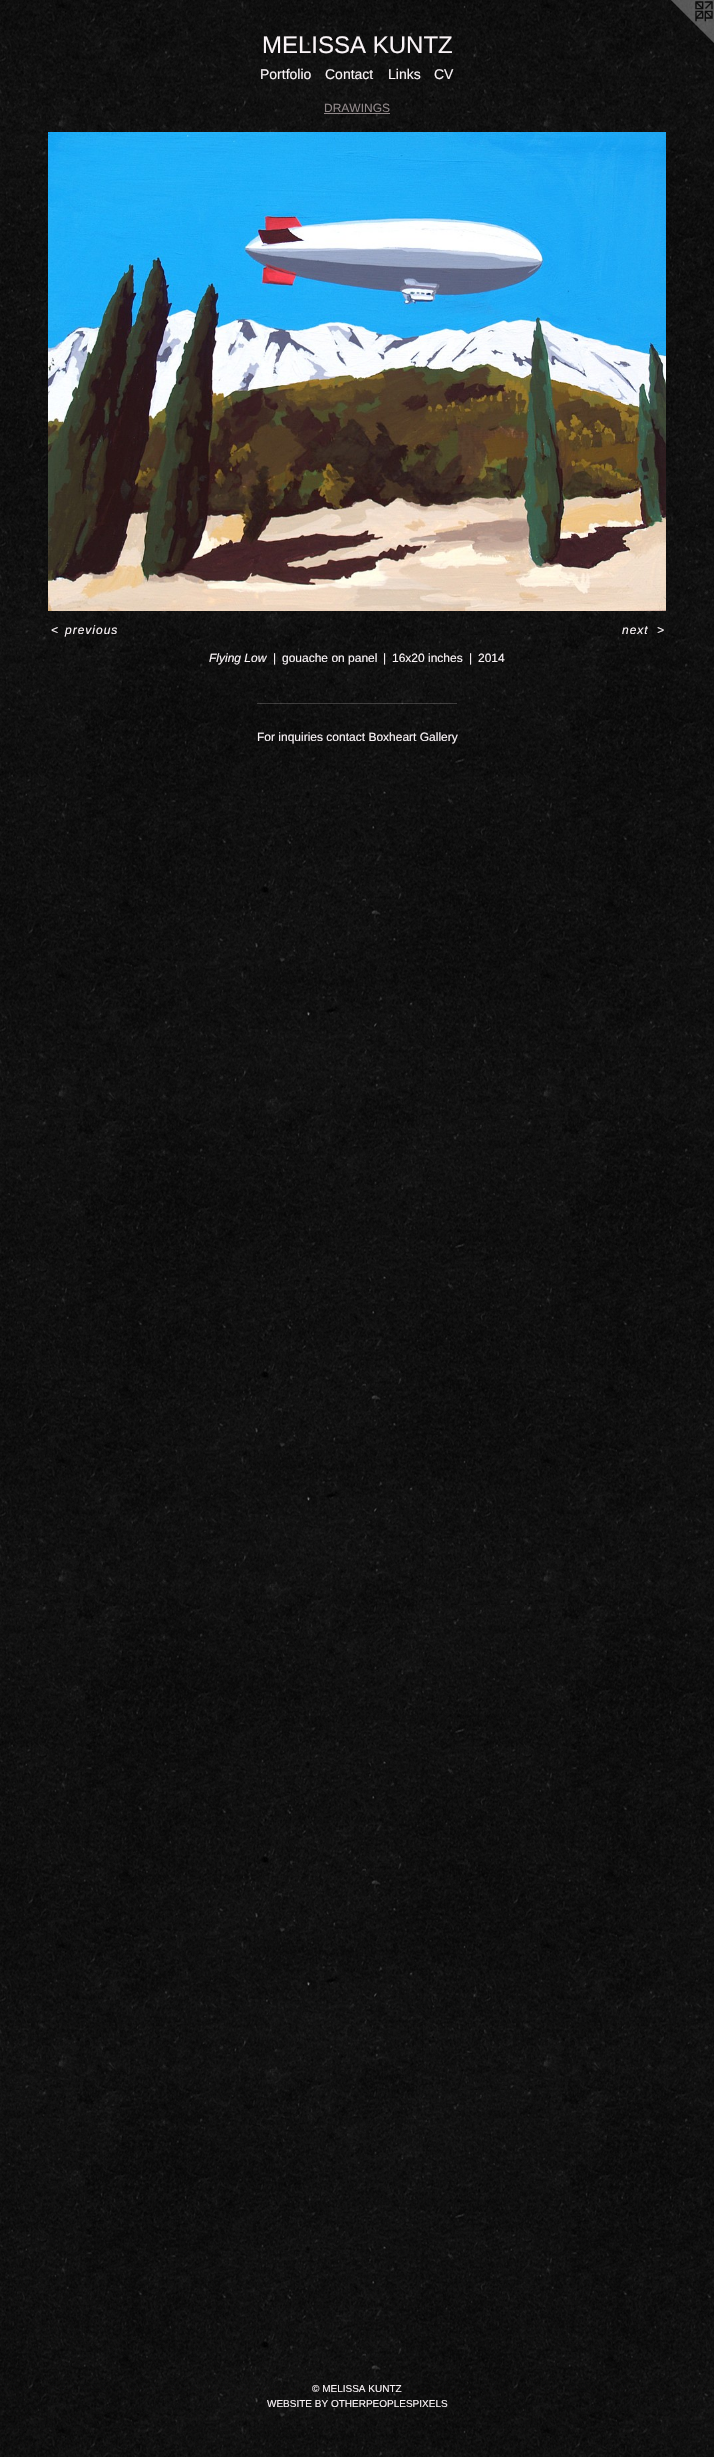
void draw(SkCanvas* canvas) {
    SkPaint paint;
    paint.setAntiAlias(true);
    auto spacedText = [&](const char* s, float x, float y, const SkFont& font, const SkPaint& ink, float letter, float word) {
        std::vector<SkGlyphID> glyphs(font.countText(s, strlen(s), SkTextEncoding::kUTF8));
        std::vector<float> xs(glyphs.size());
        font.textToGlyphs(s, strlen(s), SkTextEncoding::kUTF8, glyphs);
        font.getXPos(glyphs, xs, x);
        float extra = 0;
        for (size_t i = 0; i < glyphs.size(); i++) {
            xs[i] += extra;
            extra += letter + word * (glyphs[i] == font.unicharToGlyph(' '));
        }
        canvas->drawTextBlob(SkTextBlob::MakeFromPosHGlyphs(glyphs, xs, y, font), 0, 0, ink);
    };
    canvas->clear(0xFFFFFFFF);
    canvas->drawImageRect(SkImages::DeferredFromEncodedData(SkData::MakeFromFileName("img1.png")), SkRect::MakeXYWH(0, 0, 714, 2457), SkSamplingOptions());
    canvas->drawImageRect(SkImages::DeferredFromEncodedData(SkData::MakeFromFileName("img2.png")), SkRect::MakeXYWH(671, 0, 43, 43), SkSamplingOptions());
    SkFont font1(fontMgr->matchFamilyStyle("Liberation Sans", SkFontStyle::Normal()), 24);
    font1.setSubpixel(true);
    paint.setColor(0xFFFAF4F7);
    canvas->drawString("MELISSA KUNTZ", 262, 53, font1, paint);
    SkFont font2(fontMgr->matchFamilyStyle("Liberation Sans", SkFontStyle::Normal()), 14);
    font2.setSubpixel(true);
    canvas->drawString("Portfolio", 260, 79, font2, paint);
    canvas->drawString("Contact", 325, 79, font2, paint);
    canvas->drawString("Links", 388, 79, font2, paint);
    canvas->drawString("CV", 434, 79, font2, paint);
    SkFont font3(fontMgr->matchFamilyStyle("Liberation Sans", SkFontStyle::Normal()), 12);
    font3.setSubpixel(true);
    paint.setColor(0xFF91888A);
    canvas->drawString("DRAWINGS", 324, 112, font3, paint);
    canvas->drawRect(SkRect::MakeXYWH(324, 113, 66, 1), paint);
    canvas->drawImageRect(SkImages::DeferredFromEncodedData(SkData::MakeFromFileName("img3.png")), SkRect::MakeXYWH(48, 132, 618, 479), SkSamplingOptions());
    SkFont font4(fontMgr->matchFamilyStyle("Liberation Sans", SkFontStyle::Italic()), 12);
    font4.setSubpixel(true);
    paint.setColor(0xFFFAF4F7);
    spacedText("<", 51, 634, font4, paint, 1, 0);
    spacedText("previous", 65, 634, font4, paint, 1, 0);
    spacedText("next", 622, 634, font4, paint, 1, 0);
    spacedText(">", 657, 634, font4, paint, 1, 0);
    canvas->drawString("Flying Low", 209, 662, font4, paint);
    canvas->drawString("|", 273, 662, font3, paint);
    canvas->drawString("gouache on panel", 282, 662, font3, paint);
    canvas->drawString("|", 383, 662, font3, paint);
    canvas->drawString("16x20 inches", 392, 662, font3, paint);
    canvas->drawString("|", 469, 662, font3, paint);
    canvas->drawString("2014", 478, 662, font3, paint);
    paint.setColor(0x33FAF4F7);
    canvas->drawRect(SkRect::MakeXYWH(257, 703, 200, 1), paint);
    paint.setColor(0xFFFAF4F7);
    canvas->drawString("For inquiries contact Boxheart Gallery", 257, 741, font3, paint);
    SkFont font5(fontMgr->matchFamilyStyle("Liberation Sans", SkFontStyle::Normal()), 10);
    font5.setSubpixel(true);
    canvas->drawString("© MELISSA KUNTZ", 312, 2392, font5, paint);
    canvas->drawString("WEBSITE BY OTHERPEOPLESPIXELS", 267, 2407, font5, paint);
}
